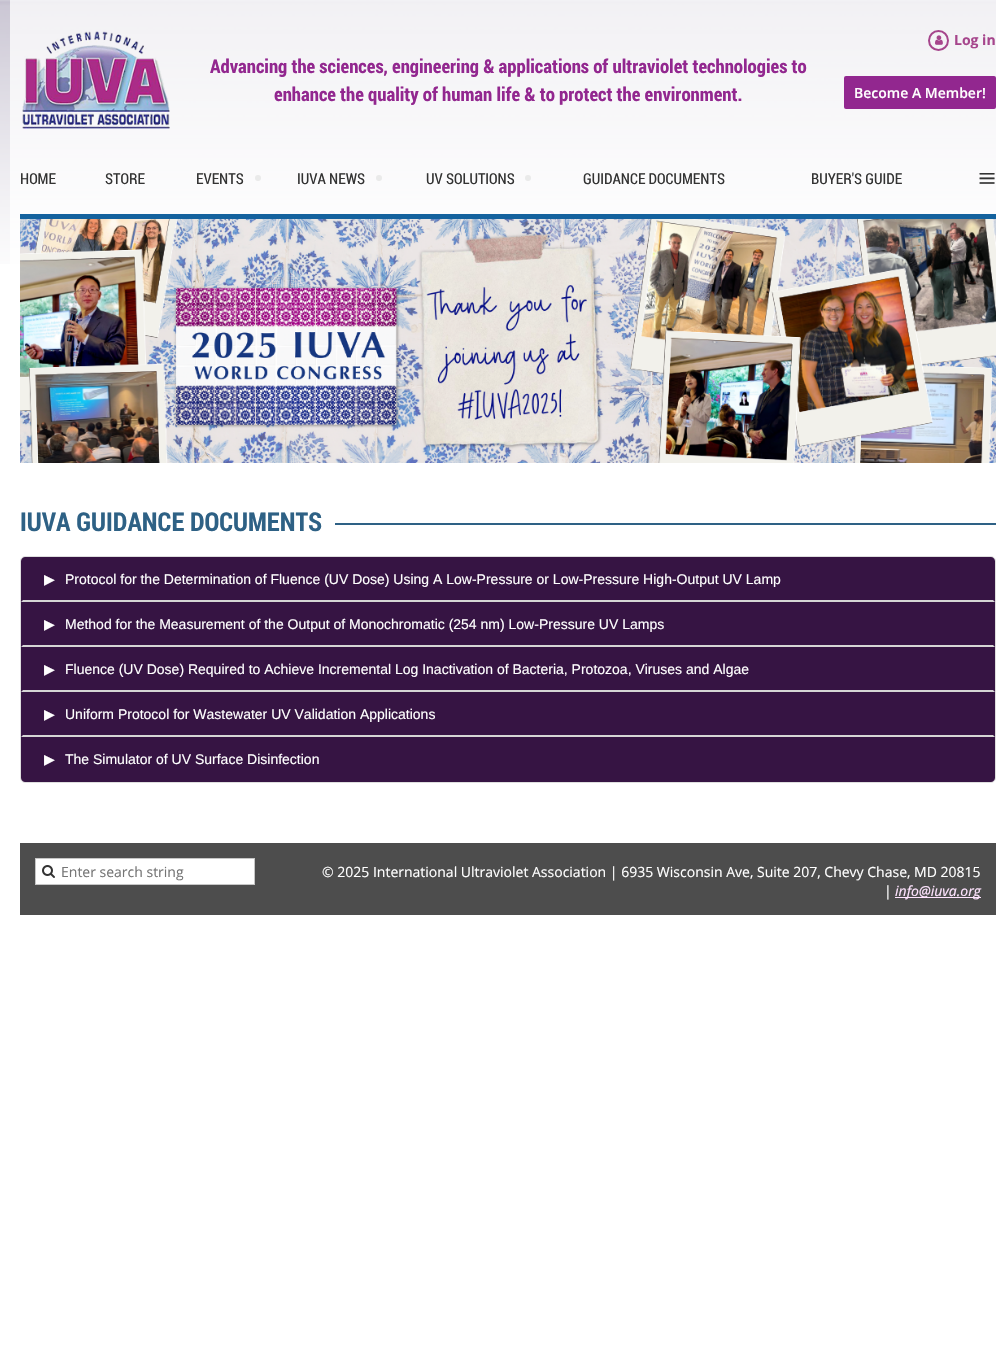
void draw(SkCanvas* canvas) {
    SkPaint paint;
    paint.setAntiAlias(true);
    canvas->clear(0xFFFFFFFF);
    canvas->drawImageRect(SkImages::DeferredFromEncodedData(SkData::MakeFromFileName("img1.png")), SkRect::MakeXYWH(0, 0, 996, 264), SkSamplingOptions());
    canvas->drawImageRect(SkImages::DeferredFromEncodedData(SkData::MakeFromFileName("img2.png")), SkRect::MakeXYWH(22, 31, 148, 98), SkSamplingOptions());
    SkFont font1(fontMgr->matchFamilyStyle("Roboto Condensed", SkFontStyle::Bold()), 18.9f);
    font1.setSubpixel(true);
    paint.setColor(0xFF92278F);
    canvas->drawString("Advancing the sciences, engineering & applications of ultraviolet technologies to", 210, 73, font1, paint);
    canvas->drawString("enhance the quality of human life & to protect the environment.", 274, 101, font1, paint);
    paint.setStyle(SkPaint::kStroke_Style);
    paint.setStrokeWidth(2);
    paint.setColor(0xFFA6458C);
    canvas->drawCircle(938.5f, 40.5f, 9.5f, paint);
    canvas->drawImageRect(SkImages::DeferredFromEncodedData(SkData::MakeFromFileName("img3.png")), SkRect::MakeXYWH(935, 35, 8, 10), SkSamplingOptions());
    SkFont font2(fontMgr->matchFamilyStyle("Open Sans", SkFontStyle::Bold()), 14);
    font2.setSubpixel(true);
    paint.setStyle(SkPaint::kFill_Style);
    canvas->drawString("Log in", 954, 45, font2, paint);
    paint.setColor(0xFF92278F);
    canvas->drawRoundRect(SkRect::MakeXYWH(844, 76, 152, 33), 2, 2, paint);
    SkFont font3(fontMgr->matchFamilyStyle("Open Sans", SkFontStyle(600, SkFontStyle::kNormal_Width, SkFontStyle::kUpright_Slant)), 14);
    font3.setSubpixel(true);
    paint.setColor(0xFFFFFFFF);
    canvas->drawString("Become A Member!", 854, 98, font3, paint);
    paint.setColor(0xFF14629E);
    canvas->drawRect(SkRect::MakeXYWH(20, 214, 976, 5), paint);
    SkFont font4(fontMgr->matchFamilyStyle("Roboto Condensed", SkFontStyle::Normal()), 15);
    font4.setSubpixel(true);
    paint.setColor(0xFF333333);
    canvas->drawString("HOME", 20, 184, font4, paint);
    canvas->drawString("STORE", 105, 184, font4, paint);
    canvas->drawString("EVENTS", 196, 184, font4, paint);
    paint.setColor(0xFFEAEAEA);
    canvas->drawCircle(258, 178, 3, paint);
    paint.setColor(0xFF333333);
    canvas->drawString("IUVA NEWS", 297, 184, font4, paint);
    paint.setColor(0xFFEAEAEA);
    canvas->drawCircle(379, 178, 3, paint);
    paint.setColor(0xFF333333);
    canvas->drawString("UV SOLUTIONS", 426, 184, font4, paint);
    paint.setColor(0xFFEAEAEA);
    canvas->drawCircle(528, 178, 3, paint);
    paint.setColor(0xFF333333);
    canvas->drawString("GUIDANCE DOCUMENTS", 583, 184, font4, paint);
    canvas->drawString("BUYER'S GUIDE", 811, 184, font4, paint);
    SkFont font5(fontMgr->matchFamilyStyle("Liberation Serif", SkFontStyle::Normal()), 32);
    font5.setSubpixel(true);
    canvas->drawString("≡", 978, 189, font5, paint);
    canvas->drawImageRect(SkImages::DeferredFromEncodedData(SkData::MakeFromFileName("img4.png")), SkRect::MakeXYWH(20, 219, 976, 244), SkSamplingOptions());
    SkFont font6(fontMgr->matchFamilyStyle("Roboto Condensed", SkFontStyle::Bold()), 26);
    font6.setSubpixel(true);
    paint.setColor(0xFF2E6185);
    canvas->drawString("IUVA GUIDANCE DOCUMENTS", 20, 531, font6, paint);
    canvas->drawRect(SkRect::MakeXYWH(335, 523, 661, 2), paint);
    paint.setStyle(SkPaint::kStroke_Style);
    paint.setStrokeWidth(1);
    paint.setColor(0xFFDEDEDE);
    canvas->drawRoundRect(SkRect::MakeXYWH(20.5f, 556.5f, 975, 226), 4.5f, 4.5f, paint);
    paint.setStyle(SkPaint::kFill_Style);
    paint.setColor(0xFF361443);
    canvas->drawPath(SkPathBuilder().moveTo(25, 557).lineTo(991, 557).cubicTo(993, 557, 995, 559, 995, 561).lineTo(995, 602).lineTo(21, 602).lineTo(21, 561).cubicTo(21, 559, 23, 557, 25, 557).close().detach(), paint);
    SkFont font7(fontMgr->matchFamilyStyle("DejaVu Sans", SkFontStyle::Normal()), 14);
    font7.setSubpixel(true);
    paint.setColor(0xFFFFFFFF);
    canvas->drawString("▶", 44, 584, font7, paint);
    SkFont font8(fontMgr->matchFamilyStyle("Liberation Sans", SkFontStyle::Normal()), 14);
    font8.setSubpixel(true);
    canvas->drawString("Protocol for the Determination of Fluence (UV Dose) Using A Low-Pressure or Low-Pressure High-Output UV Lamp", 65, 584, font8, paint);
    paint.setColor(0xFFD5D5D5);
    canvas->drawPath(SkPathBuilder().moveTo(995, 602).lineTo(21, 602).lineTo(23, 600).lineTo(993, 600).close().detach(), paint);
    paint.setColor(0xFF361443);
    canvas->drawRect(SkRect::MakeXYWH(21, 602, 974, 135), paint);
    paint.setColor(0xFFFFFFFF);
    canvas->drawString("▶", 44, 629, font7, paint);
    canvas->drawString("Method for the Measurement of the Output of Monochromatic (254 nm) Low-Pressure UV Lamps", 65, 629, font8, paint);
    paint.setColor(0xFFD5D5D5);
    canvas->drawPath(SkPathBuilder().moveTo(995, 647).lineTo(21, 647).lineTo(23, 645).lineTo(993, 645).close().detach(), paint);
    paint.setColor(0xFFFFFFFF);
    canvas->drawString("▶", 44, 674, font7, paint);
    canvas->drawString("Fluence (UV Dose) Required to Achieve Incremental Log Inactivation of Bacteria, Protozoa, Viruses and Algae", 65, 674, font8, paint);
    paint.setColor(0xFFD5D5D5);
    canvas->drawPath(SkPathBuilder().moveTo(995, 692).lineTo(21, 692).lineTo(23, 690).lineTo(993, 690).close().detach(), paint);
    paint.setColor(0xFFFFFFFF);
    canvas->drawString("▶", 44, 719, font7, paint);
    canvas->drawString("Uniform Protocol for Wastewater UV Validation Applications", 65, 719, font8, paint);
    paint.setColor(0xFFD5D5D5);
    canvas->drawPath(SkPathBuilder().moveTo(995, 737).lineTo(21, 737).lineTo(23, 735).lineTo(993, 735).close().detach(), paint);
    paint.setColor(0xFF361443);
    canvas->drawPath(SkPathBuilder().moveTo(21, 737).lineTo(995, 737).lineTo(995, 778).cubicTo(995, 780, 993, 782, 991, 782).lineTo(25, 782).cubicTo(23, 782, 21, 780, 21, 778).close().detach(), paint);
    paint.setColor(0xFFFFFFFF);
    canvas->drawString("▶", 44, 764, font7, paint);
    canvas->drawString("The Simulator of UV Surface Disinfection", 65, 764, font8, paint);
    paint.setColor(0xFF4D4D4D);
    canvas->drawRect(SkRect::MakeXYWH(20, 843, 976, 72), paint);
    paint.setColor(0xFFFFFFFF);
    canvas->drawRect(SkRect::MakeXYWH(35.5f, 858.5f, 219, 26), paint);
    paint.setStyle(SkPaint::kStroke_Style);
    paint.setColor(0xFFC6C6C6);
    canvas->drawRect(SkRect::MakeXYWH(35.5f, 858.5f, 219, 26), paint);
    canvas->drawImageRect(SkImages::DeferredFromEncodedData(SkData::MakeFromFileName("img5.png")), SkRect::MakeXYWH(42, 865, 13, 13), SkSamplingOptions());
    SkFont font9(fontMgr->matchFamilyStyle("Open Sans", SkFontStyle::Normal()), 14);
    font9.setSubpixel(true);
    paint.setStyle(SkPaint::kFill_Style);
    paint.setColor(0xFF757575);
    canvas->drawString("Enter search string", 61, 877, font9, paint);
    paint.setColor(0xFFFFFFFF);
    canvas->drawString("© 2025 International Ultraviolet Association | 6935 Wisconsin Ave, Suite 207, Chevy Chase, MD 20815", 322, 877, font9, paint);
    canvas->drawString("|", 884, 896, font9, paint);
    paint.setColor(0xFFFFE4FF);
    canvas->drawRect(SkRect::MakeXYWH(895, 897, 86, 1), paint);
    SkFont font10(fontMgr->matchFamilyStyle("Open Sans", SkFontStyle::Italic()), 14);
    font10.setSubpixel(true);
    canvas->drawString("info@iuva.org", 895, 896, font10, paint);
}
